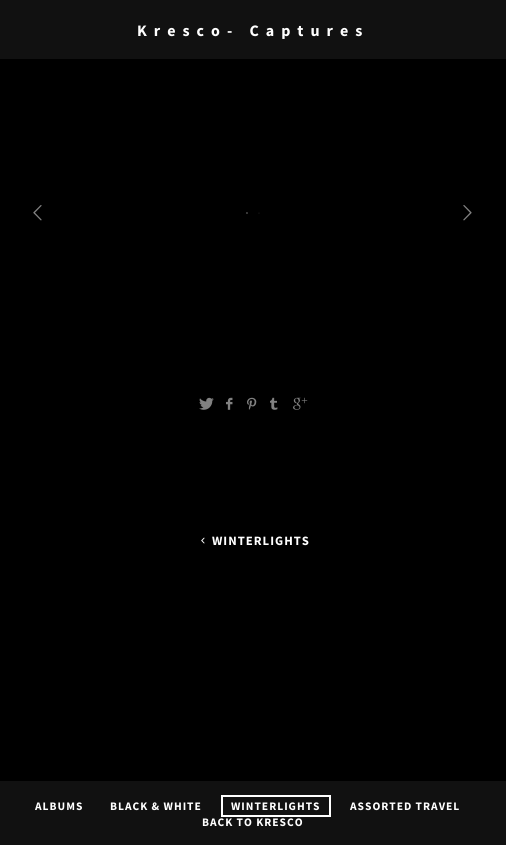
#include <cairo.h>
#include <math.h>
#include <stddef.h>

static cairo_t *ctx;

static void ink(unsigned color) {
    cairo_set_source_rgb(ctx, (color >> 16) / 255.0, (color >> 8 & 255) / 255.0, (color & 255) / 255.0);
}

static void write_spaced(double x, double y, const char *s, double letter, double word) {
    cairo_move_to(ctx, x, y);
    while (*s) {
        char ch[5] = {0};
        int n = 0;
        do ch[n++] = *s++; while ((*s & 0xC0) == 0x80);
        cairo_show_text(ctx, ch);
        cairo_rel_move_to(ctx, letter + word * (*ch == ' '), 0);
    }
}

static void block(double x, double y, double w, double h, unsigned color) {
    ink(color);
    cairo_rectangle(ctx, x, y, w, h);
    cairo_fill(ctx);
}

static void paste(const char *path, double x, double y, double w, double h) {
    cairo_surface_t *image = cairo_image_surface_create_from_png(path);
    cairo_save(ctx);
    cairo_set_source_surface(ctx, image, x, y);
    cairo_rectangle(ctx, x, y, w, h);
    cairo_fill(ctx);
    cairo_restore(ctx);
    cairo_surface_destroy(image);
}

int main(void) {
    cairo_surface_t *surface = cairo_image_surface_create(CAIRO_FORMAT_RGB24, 506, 845);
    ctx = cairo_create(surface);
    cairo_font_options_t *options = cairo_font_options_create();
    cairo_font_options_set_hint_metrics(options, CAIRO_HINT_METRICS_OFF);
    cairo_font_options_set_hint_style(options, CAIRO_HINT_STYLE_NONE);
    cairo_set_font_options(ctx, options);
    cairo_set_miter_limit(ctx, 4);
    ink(0x000000);
    cairo_paint(ctx);
    block(0, 0, 506, 59, 0x111111);
    cairo_select_font_face(ctx, "Source Sans Pro", CAIRO_FONT_SLANT_NORMAL, CAIRO_FONT_WEIGHT_BOLD);
    cairo_set_font_size(ctx, 16);
    ink(0xffffff);
    write_spaced(137, 36, "Kresco- Captures", 7, 0);
    paste("pic1.png", 33, 205, 9, 16);
    paste("pic2.png", 246, 212, 14, 2);
    paste("pic3.png", 463, 205, 9, 16);
    paste("pic4.png", 199, 397, 15, 13);
    paste("pic5.png", 226, 397, 7, 13);
    paste("pic6.png", 247, 397, 10, 13);
    paste("pic7.png", 270, 397, 8, 13);
    paste("pic8.png", 293, 397, 15, 13);
    paste("pic9.png", 201, 537, 4, 7);
    cairo_set_font_size(ctx, 12.75);
    write_spaced(212, 545, "WINTERLIGHTS", 1, 0);
    block(0, 781, 506, 64, 0x111111);
    cairo_set_font_size(ctx, 11.5);
    ink(0xffffff);
    write_spaced(35, 810, "ALBUMS", 1, 0);
    write_spaced(110, 810, "BLACK & WHITE", 1, 0);
    cairo_rectangle(ctx, 222, 796, 108, 20);
    cairo_stroke(ctx);
    write_spaced(231, 810, "WINTERLIGHTS", 1, 0);
    write_spaced(350, 810, "ASSORTED TRAVEL", 1, 0);
    write_spaced(202, 826, "BACK TO KRESCO", 1, 0);
    cairo_surface_write_to_png(surface, "screenshot.png");
    cairo_font_options_destroy(options);
    cairo_destroy(ctx);
    cairo_surface_destroy(surface);
    return 0;
}
